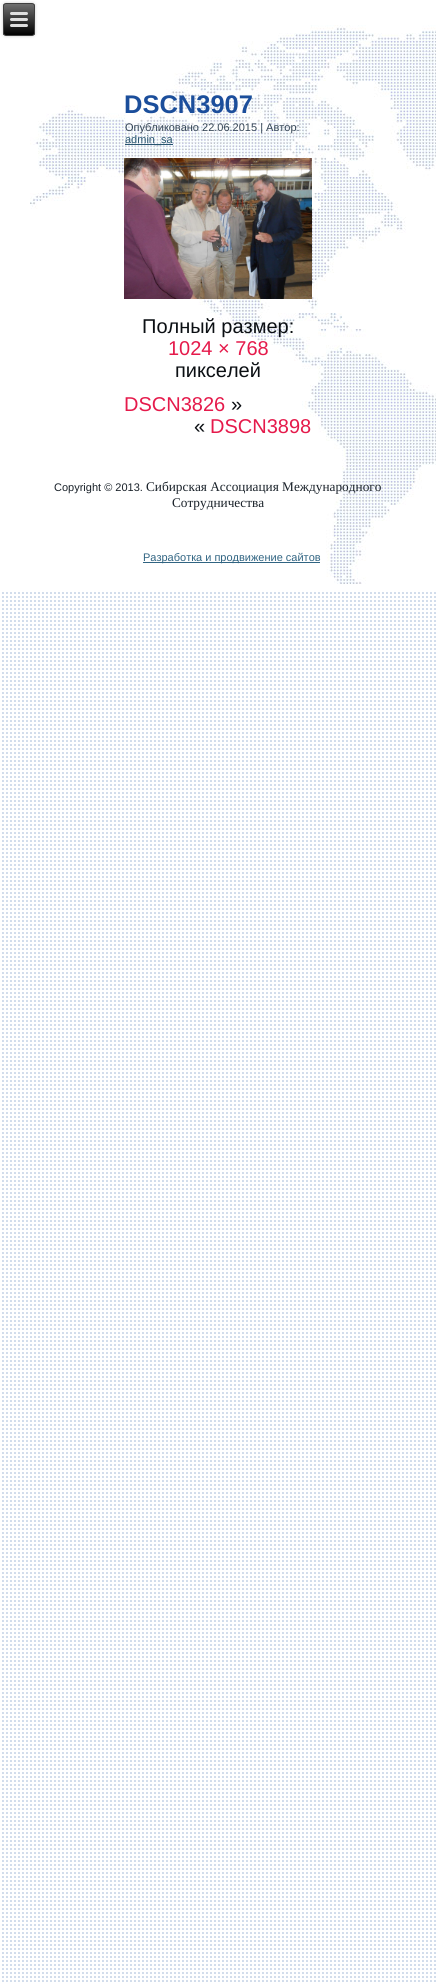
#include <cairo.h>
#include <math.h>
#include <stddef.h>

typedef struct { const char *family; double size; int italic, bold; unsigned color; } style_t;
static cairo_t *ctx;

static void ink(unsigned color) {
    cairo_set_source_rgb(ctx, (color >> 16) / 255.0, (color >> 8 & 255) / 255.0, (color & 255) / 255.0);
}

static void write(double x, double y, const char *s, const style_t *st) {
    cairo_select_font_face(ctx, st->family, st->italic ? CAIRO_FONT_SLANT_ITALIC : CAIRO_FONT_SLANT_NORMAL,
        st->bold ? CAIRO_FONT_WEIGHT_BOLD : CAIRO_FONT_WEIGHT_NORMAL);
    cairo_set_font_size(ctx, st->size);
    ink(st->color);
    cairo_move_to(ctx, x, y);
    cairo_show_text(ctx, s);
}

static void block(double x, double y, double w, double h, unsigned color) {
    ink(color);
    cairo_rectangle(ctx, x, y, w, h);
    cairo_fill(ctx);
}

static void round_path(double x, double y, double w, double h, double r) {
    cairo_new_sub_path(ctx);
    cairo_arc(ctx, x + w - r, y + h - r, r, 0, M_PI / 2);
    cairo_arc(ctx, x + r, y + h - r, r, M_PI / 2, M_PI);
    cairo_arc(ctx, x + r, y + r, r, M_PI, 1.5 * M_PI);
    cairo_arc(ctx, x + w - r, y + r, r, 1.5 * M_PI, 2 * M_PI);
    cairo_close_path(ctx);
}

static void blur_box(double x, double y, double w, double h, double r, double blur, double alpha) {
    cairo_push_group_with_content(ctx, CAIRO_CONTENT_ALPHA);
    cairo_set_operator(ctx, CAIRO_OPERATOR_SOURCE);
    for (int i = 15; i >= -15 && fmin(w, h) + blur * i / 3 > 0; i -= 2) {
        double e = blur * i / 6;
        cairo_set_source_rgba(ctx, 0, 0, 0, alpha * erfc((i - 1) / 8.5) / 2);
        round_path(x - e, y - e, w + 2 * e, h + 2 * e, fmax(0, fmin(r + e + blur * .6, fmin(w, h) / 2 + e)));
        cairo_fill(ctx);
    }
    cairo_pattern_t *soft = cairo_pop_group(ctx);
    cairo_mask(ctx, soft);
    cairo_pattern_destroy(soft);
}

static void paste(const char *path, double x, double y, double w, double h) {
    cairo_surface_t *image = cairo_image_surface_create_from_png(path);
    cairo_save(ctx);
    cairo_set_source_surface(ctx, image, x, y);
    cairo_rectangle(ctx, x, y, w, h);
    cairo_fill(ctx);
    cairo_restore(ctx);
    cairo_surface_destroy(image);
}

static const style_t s1 = {"Liberation Sans", 25.5, 0, 1, 0x1b4e9b};
static const style_t s2 = {"Liberation Sans", 11, 0, 0, 0x344556};
static const style_t s3 = {"Liberation Sans", 11, 0, 0, 0x295670};
static const style_t s4 = {"Liberation Sans", 20, 0, 0, 0x0b0f13};
static const style_t s5 = {"Liberation Sans", 20, 0, 0, 0xe51a4b};
static const style_t s6 = {"Liberation Sans", 11, 0, 0, 0x192129};
static const style_t s7 = {"Liberation Serif", 13.3, 0, 0, 0x192129};
static const style_t s8 = {"Liberation Sans", 11, 0, 0, 0x306482};

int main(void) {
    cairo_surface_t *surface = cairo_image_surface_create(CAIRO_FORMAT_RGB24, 436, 1983);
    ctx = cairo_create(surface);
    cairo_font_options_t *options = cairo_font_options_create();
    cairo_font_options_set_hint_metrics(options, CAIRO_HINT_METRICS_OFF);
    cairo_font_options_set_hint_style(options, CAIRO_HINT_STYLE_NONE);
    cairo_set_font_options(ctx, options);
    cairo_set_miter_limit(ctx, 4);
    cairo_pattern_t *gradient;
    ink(0xffffff);
    cairo_paint(ctx);
    paste("pic1.png", 2, 591, 434, 1391);
    paste("pic2.png", 30, 25, 406, 559);
    ink(0x000000);
    blur_box(3, 3, 32, 33, 3, 1.5, 0.2);
    cairo_save(ctx);
    round_path(3, 3, 32, 33, 3);
    cairo_clip(ctx);
    gradient = cairo_pattern_create_linear(19, 4, 19, 35);
    cairo_pattern_add_color_stop_rgba(gradient, 0, 0.439, 0.439, 0.439, 1);
    cairo_pattern_add_color_stop_rgba(gradient, 1, 0, 0, 0, 1);
    cairo_set_source(ctx, gradient);
    cairo_pattern_destroy(gradient);
    cairo_rectangle(ctx, 3, 4, 32, 31);
    cairo_fill(ctx);
    cairo_restore(ctx);
    round_path(3.5, 3.5, 31, 32, 2.5);
    ink(0x404040);
    cairo_set_line_width(ctx, 1);
    cairo_stroke(ctx);
    ink(0xe0e0e0);
    round_path(10, 12, 18, 3, 1.5);
    cairo_fill(ctx);
    round_path(10, 18, 18, 3, 1.5);
    cairo_fill(ctx);
    round_path(10, 24, 18, 3, 1.5);
    cairo_fill(ctx);
    write(124, 113, "DSCN3907", &s1);
    write(125, 131, "Опубликовано 22.06.2015 | Автор:", &s2);
    block(125, 144, 48, 1, 0x295670);
    write(125, 143, "admin_sa", &s3);
    paste("pic3.png", 124, 158, 188, 141);
    write(142, 333, "Полный размер:", &s4);
    write(168, 355, "1024 × 768", &s5);
    write(175, 377, "пикселей", &s4);
    write(124, 411, "DSCN3826", &s5);
    write(231, 411, "»", &s4);
    write(194, 433, "«", &s4);
    write(210, 433, "DSCN3898", &s5);
    write(54, 491, "Copyright © 2013.", &s6);
    write(146, 491, "Сибирская Ассоциация Международного", &s7);
    write(172, 507, "Сотрудничества", &s7);
    block(143, 562, 177, 1, 0x306482);
    write(143, 561, "Разработка и продвижение сайтов", &s8);
    cairo_surface_write_to_png(surface, "screenshot.png");
    cairo_font_options_destroy(options);
    cairo_destroy(ctx);
    cairo_surface_destroy(surface);
    return 0;
}
